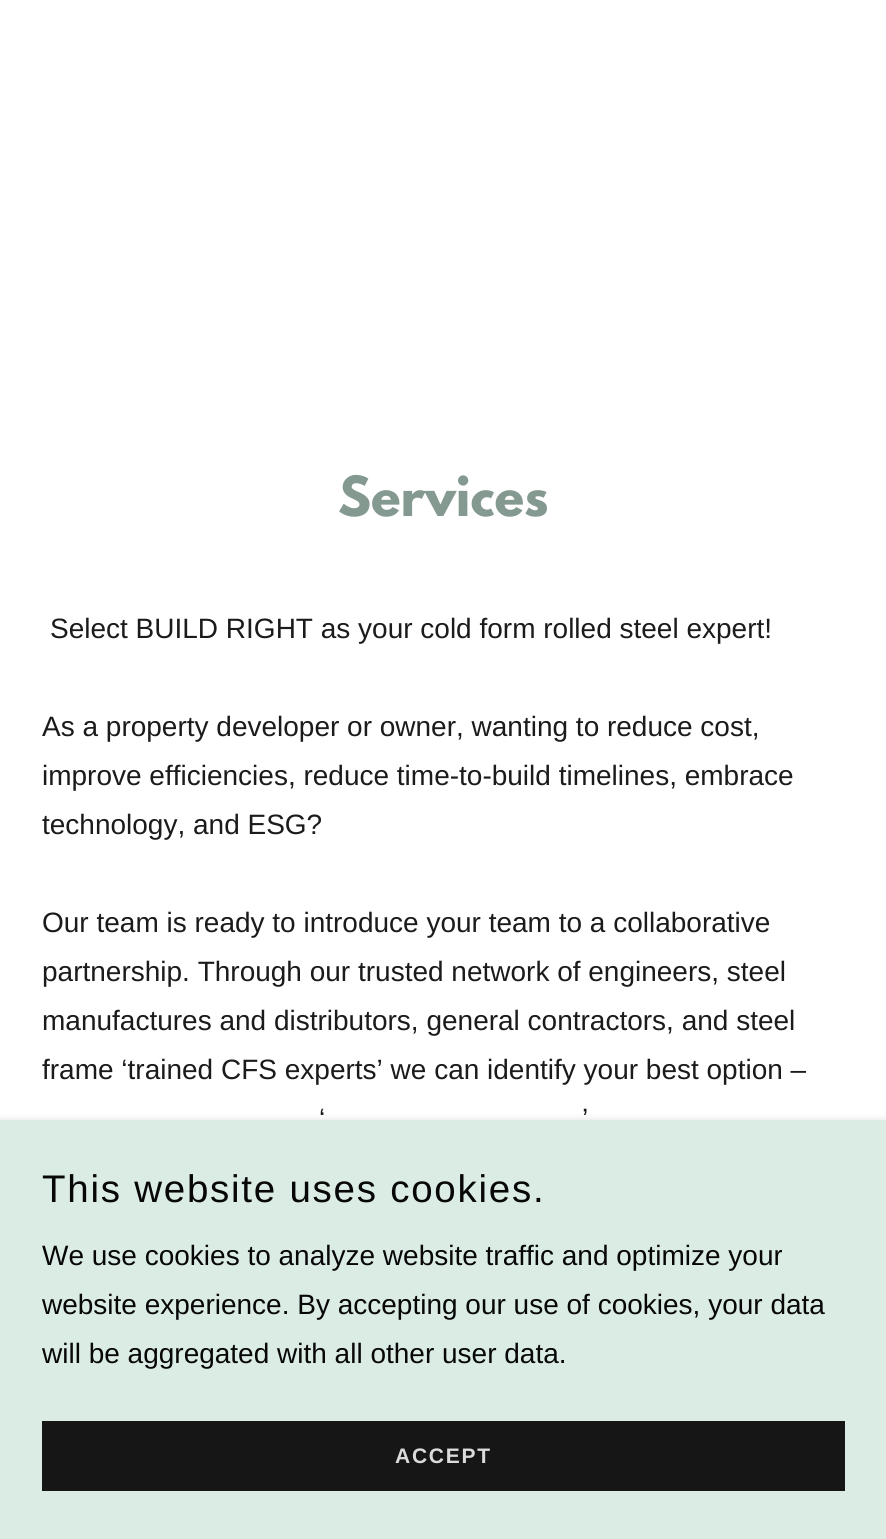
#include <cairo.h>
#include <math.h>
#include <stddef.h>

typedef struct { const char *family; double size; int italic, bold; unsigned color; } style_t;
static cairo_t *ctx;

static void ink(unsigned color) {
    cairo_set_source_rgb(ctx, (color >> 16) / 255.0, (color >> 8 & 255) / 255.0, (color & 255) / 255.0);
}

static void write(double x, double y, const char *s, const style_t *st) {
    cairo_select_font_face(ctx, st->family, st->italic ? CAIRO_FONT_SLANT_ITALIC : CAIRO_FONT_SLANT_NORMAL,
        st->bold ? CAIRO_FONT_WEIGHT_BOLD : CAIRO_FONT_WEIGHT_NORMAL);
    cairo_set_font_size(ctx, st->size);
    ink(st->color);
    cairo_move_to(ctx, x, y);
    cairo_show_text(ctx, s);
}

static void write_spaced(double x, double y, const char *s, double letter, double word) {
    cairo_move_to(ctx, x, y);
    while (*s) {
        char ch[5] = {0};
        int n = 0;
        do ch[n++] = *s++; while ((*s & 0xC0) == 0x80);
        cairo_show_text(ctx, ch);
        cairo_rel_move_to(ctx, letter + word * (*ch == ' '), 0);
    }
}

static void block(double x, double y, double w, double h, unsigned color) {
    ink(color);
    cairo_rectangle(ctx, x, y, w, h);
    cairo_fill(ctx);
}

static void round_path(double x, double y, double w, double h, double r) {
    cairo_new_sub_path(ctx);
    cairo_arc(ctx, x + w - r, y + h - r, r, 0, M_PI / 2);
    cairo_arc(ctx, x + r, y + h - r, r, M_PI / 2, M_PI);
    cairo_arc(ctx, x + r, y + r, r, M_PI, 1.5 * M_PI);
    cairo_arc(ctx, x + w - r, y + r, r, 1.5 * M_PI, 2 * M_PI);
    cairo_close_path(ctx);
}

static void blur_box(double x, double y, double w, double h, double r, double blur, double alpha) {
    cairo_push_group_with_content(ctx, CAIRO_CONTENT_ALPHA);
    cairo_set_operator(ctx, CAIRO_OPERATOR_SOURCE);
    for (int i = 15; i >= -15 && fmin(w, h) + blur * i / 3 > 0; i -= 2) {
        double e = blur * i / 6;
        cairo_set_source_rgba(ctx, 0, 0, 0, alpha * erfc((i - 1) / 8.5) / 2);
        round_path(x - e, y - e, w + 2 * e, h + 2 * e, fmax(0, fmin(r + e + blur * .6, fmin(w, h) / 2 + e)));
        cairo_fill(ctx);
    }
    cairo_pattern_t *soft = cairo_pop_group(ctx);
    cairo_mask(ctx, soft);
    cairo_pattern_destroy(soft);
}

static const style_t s1 = {"League Spartan", 49, 0, 1, 0x849990};
static const style_t s2 = {"Liberation Sans", 28, 0, 0, 0x1b1b1b};
static const style_t s3 = {"Liberation Sans", 28, 0, 0, 0x070707};

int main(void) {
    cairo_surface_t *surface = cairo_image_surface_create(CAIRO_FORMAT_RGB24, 886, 1539);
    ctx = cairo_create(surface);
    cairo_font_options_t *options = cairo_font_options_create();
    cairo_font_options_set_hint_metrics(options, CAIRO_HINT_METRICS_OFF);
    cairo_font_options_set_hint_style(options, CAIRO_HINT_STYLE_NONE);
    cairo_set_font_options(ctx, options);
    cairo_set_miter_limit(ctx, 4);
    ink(0xffffff);
    cairo_paint(ctx);
    write(338, 516, "Services", &s1);
    write(50, 638, "Select BUILD RIGHT as your cold form rolled steel expert!", &s2);
    write(42, 736, "As a property developer or owner, wanting to reduce cost,", &s2);
    write(42, 785, "improve efficiencies, reduce time-to-build timelines, embrace", &s2);
    write(42, 834, "technology, and ESG?", &s2);
    write(42, 932, "Our team is ready to introduce your team to a collaborative", &s2);
    write(42, 981, "partnership. Through our trusted network of engineers, steel", &s2);
    write(42, 1030, "manufactures and distributors, general contractors, and steel", &s2);
    write(42, 1079, "frame ‘trained CFS experts’ we can identify your best option –", &s2);
    write(319, 1128, "‘", &s2);
    write(582, 1128, "’", &s2);
    ink(0x000000);
    blur_box(0, 1124, 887, 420, 0, 5, 0.3);
    block(0, 1120, 886, 419, 0xdbece5);
    cairo_set_font_size(ctx, 38.5);
    ink(0x070707);
    write_spaced(42, 1202, "This website uses cookies.", 1.75, 0);
    write(42, 1265, "We use cookies to analyze website traffic and optimize your", &s3);
    write(42, 1314, "website experience. By accepting our use of cookies, your data", &s3);
    write(42, 1363, "will be aggregated with all other user data.", &s3);
    block(42, 1421, 803, 70, 0x161616);
    cairo_select_font_face(ctx, "Liberation Sans", CAIRO_FONT_SLANT_NORMAL, CAIRO_FONT_WEIGHT_BOLD);
    cairo_set_font_size(ctx, 21);
    ink(0xdbdbdb);
    write_spaced(395, 1463, "ACCEPT", 1.75, 0);
    cairo_surface_write_to_png(surface, "screenshot.png");
    cairo_font_options_destroy(options);
    cairo_destroy(ctx);
    cairo_surface_destroy(surface);
    return 0;
}
